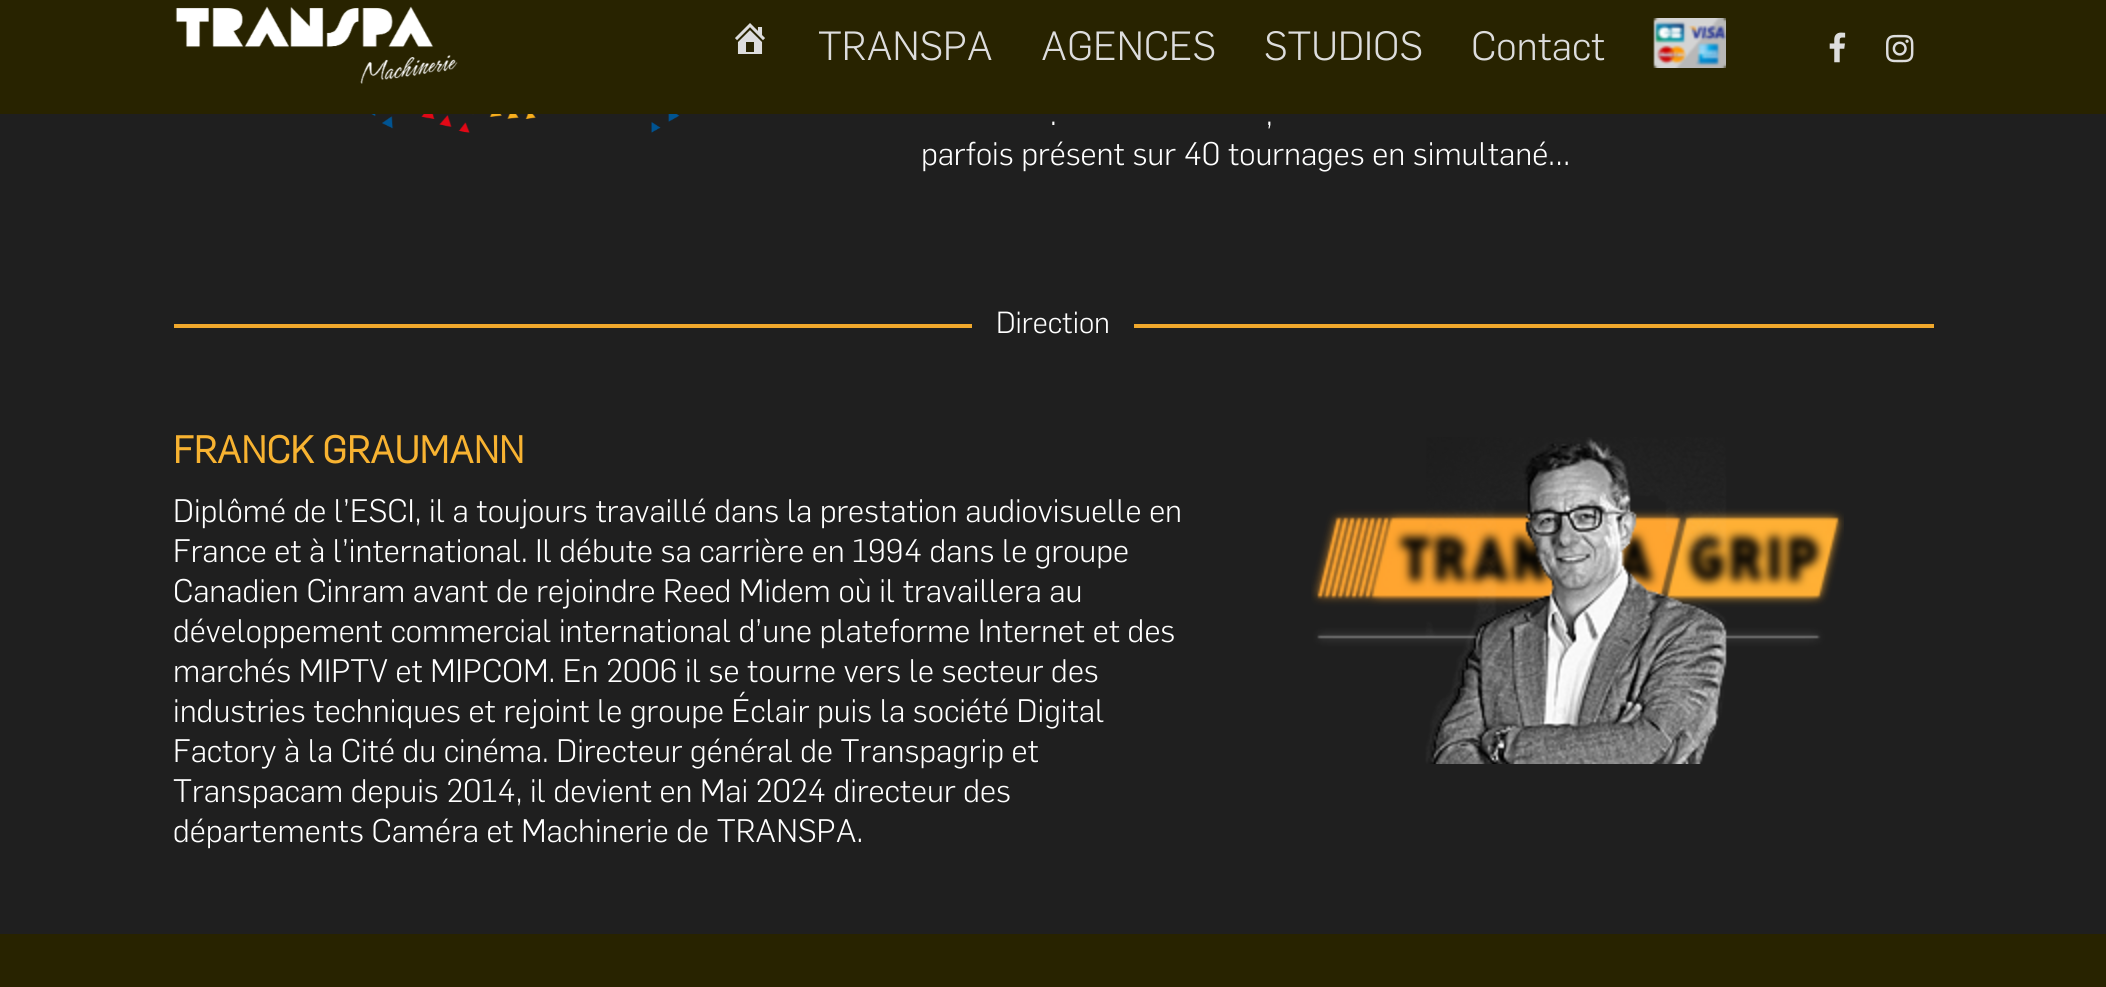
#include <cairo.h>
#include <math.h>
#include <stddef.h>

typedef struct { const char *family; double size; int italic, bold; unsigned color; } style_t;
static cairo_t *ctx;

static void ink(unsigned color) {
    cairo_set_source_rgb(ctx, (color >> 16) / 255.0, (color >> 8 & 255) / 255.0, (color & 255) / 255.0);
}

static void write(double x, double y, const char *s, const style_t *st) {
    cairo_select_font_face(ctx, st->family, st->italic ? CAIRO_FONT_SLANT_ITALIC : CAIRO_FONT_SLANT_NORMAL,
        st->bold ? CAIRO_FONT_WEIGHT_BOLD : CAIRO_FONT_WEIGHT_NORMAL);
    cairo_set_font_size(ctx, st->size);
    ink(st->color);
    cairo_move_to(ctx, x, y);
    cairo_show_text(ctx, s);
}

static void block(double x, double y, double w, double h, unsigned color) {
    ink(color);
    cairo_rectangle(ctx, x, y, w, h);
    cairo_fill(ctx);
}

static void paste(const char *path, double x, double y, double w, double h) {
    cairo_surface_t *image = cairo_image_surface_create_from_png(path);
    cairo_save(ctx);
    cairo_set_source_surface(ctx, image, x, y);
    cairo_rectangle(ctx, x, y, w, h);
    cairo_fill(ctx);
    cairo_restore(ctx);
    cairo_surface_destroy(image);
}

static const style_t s1 = {"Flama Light", 40, 0, 0, 0xdddddd};
static const style_t s2 = {"Flama Light", 32, 0, 0, 0xffffff};
static const style_t s3 = {"Flama Light", 30, 0, 0, 0xffffff};
static const style_t s4 = {"Flama", 37.5, 0, 1, 0xf8b331};

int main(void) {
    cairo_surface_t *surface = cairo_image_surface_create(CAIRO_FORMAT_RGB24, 2106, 987);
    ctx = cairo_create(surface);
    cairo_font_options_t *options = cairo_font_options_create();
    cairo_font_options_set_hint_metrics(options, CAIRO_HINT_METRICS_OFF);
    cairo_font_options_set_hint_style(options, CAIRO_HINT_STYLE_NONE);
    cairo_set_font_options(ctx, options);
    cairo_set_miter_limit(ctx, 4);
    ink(0x1f1f1f);
    cairo_paint(ctx);
    block(0, 0, 2106, 114, 0x282300);
    paste("pic1.png", 175, 6, 283, 78);
    paste("pic2.png", 735, 23, 30, 31);
    write(818, 60, "TRANSPA", &s1);
    write(1041, 60, "AGENCES", &s1);
    write(1264, 60, "STUDIOS", &s1);
    write(1471, 60, "Contact", &s1);
    paste("pic3.png", 1653, 18, 73, 50);
    paste("pic4.png", 1829, 32, 17, 31);
    paste("pic5.png", 1886, 34, 28, 29);
    paste("pic6.png", 371, 114, 309, 19);
    write(1050, 125, ".", &s2);
    write(1266, 125, ",", &s2);
    write(921, 165, "parfois présent sur 40 tournages en simultané…", &s2);
    block(174, 324, 798, 4, 0xf0a82c);
    write(996, 333, "Direction", &s3);
    block(1134, 324, 800, 4, 0xf0a82c);
    write(173, 463, "FRANCK GRAUMANN", &s4);
    write(173, 522, "Diplômé de l’ESCI, il a toujours travaillé dans la prestation audiovisuelle en", &s2);
    write(173, 562, "France et à l’international. Il débute sa carrière en 1994 dans le groupe", &s2);
    write(173, 602, "Canadien Cinram avant de rejoindre Reed Midem où il travaillera au", &s2);
    write(173, 642, "développement commercial international d’une plateforme Internet et des", &s2);
    write(173, 682, "marchés MIPTV et MIPCOM. En 2006 il se tourne vers le secteur des", &s2);
    write(173, 722, "industries techniques et rejoint le groupe Éclair puis la société Digital", &s2);
    write(173, 762, "Factory à la Cité du cinéma. Directeur général de Transpagrip et", &s2);
    write(173, 802, "Transpacam depuis 2014, il devient en Mai 2024 directeur des", &s2);
    write(173, 842, "départements Caméra et Machinerie de TRANSPA.", &s2);
    paste("pic7.png", 1311, 437, 533, 327);
    block(0, 934, 2106, 53, 0x282300);
    cairo_surface_write_to_png(surface, "screenshot.png");
    cairo_font_options_destroy(options);
    cairo_destroy(ctx);
    cairo_surface_destroy(surface);
    return 0;
}
